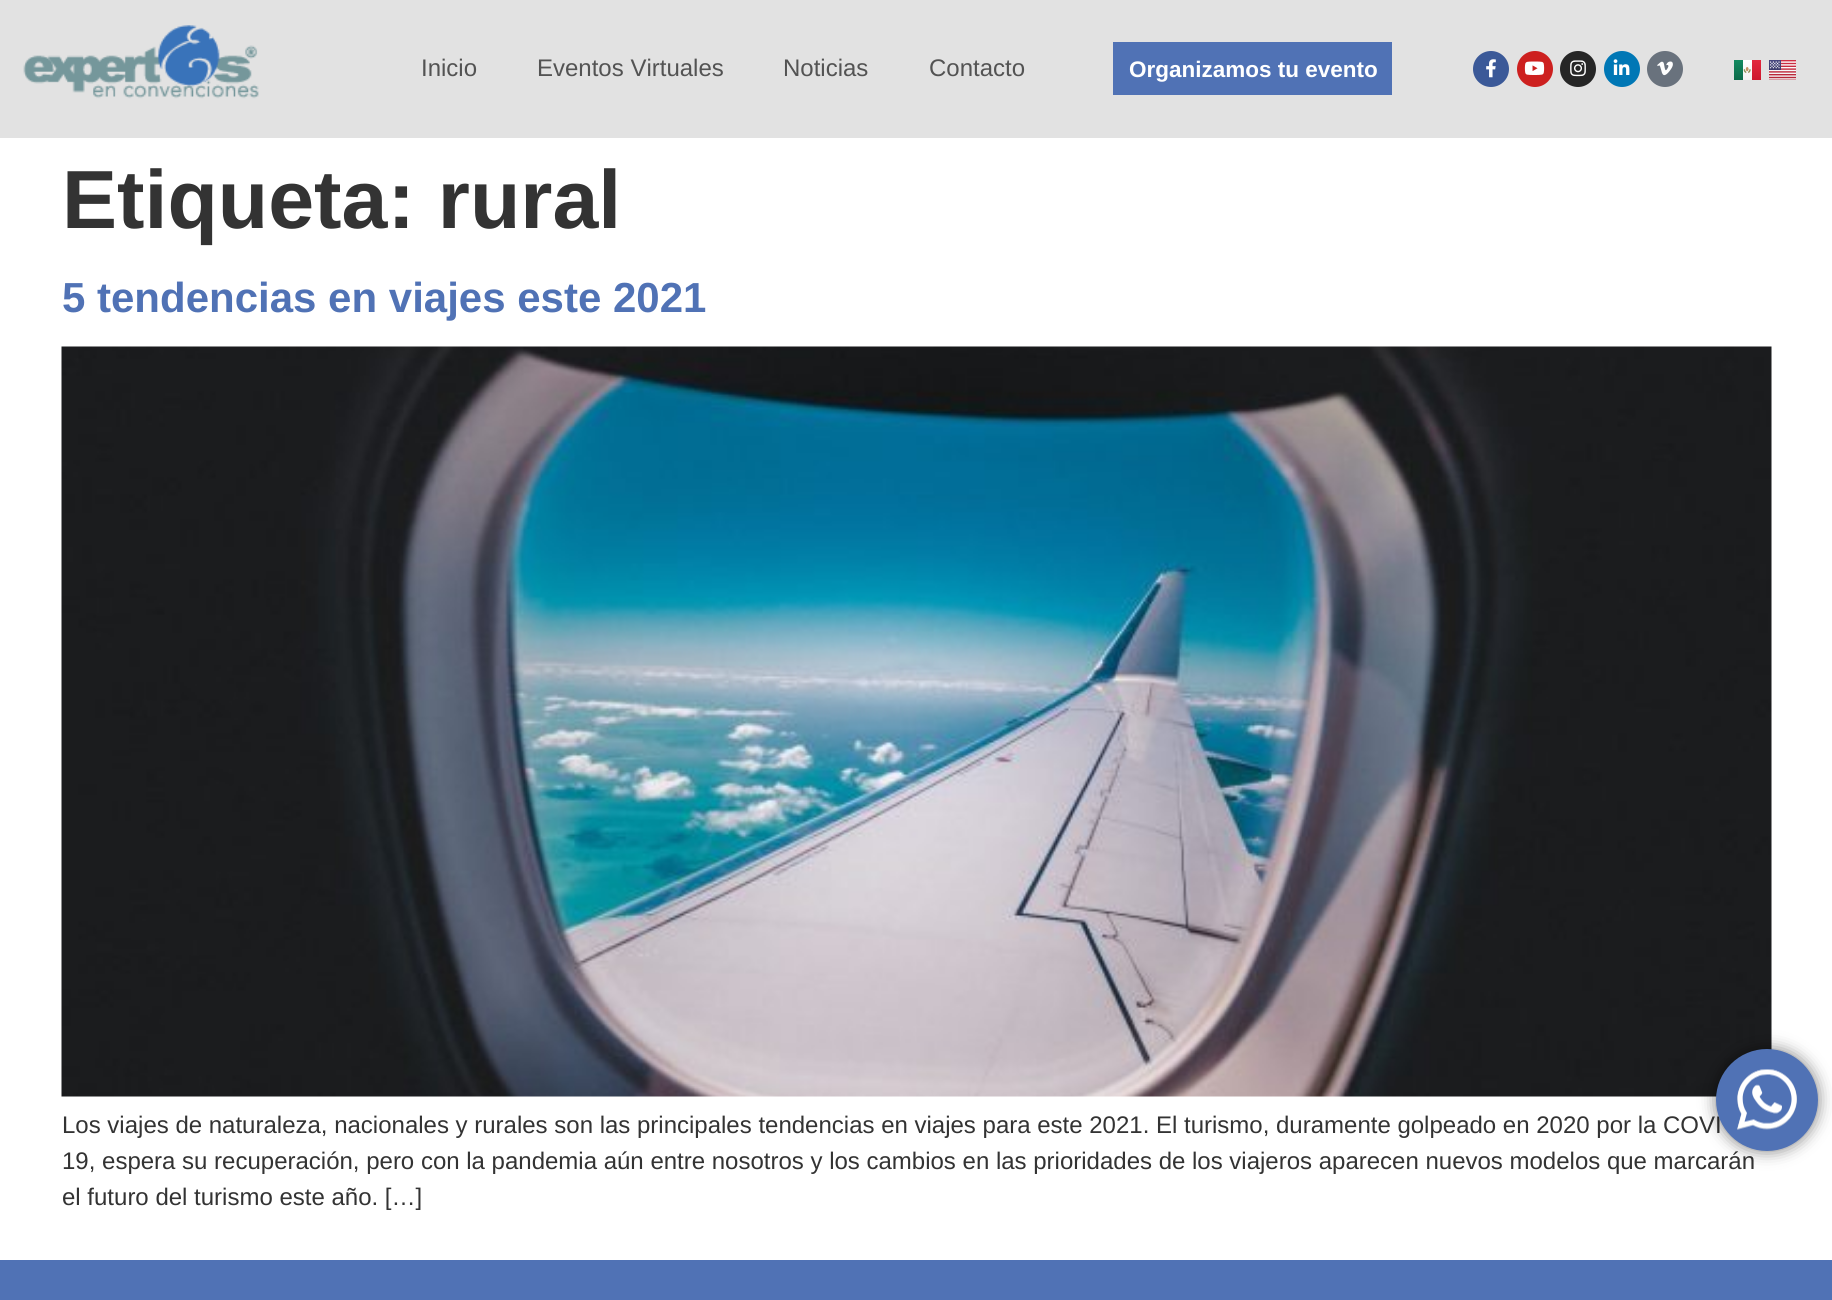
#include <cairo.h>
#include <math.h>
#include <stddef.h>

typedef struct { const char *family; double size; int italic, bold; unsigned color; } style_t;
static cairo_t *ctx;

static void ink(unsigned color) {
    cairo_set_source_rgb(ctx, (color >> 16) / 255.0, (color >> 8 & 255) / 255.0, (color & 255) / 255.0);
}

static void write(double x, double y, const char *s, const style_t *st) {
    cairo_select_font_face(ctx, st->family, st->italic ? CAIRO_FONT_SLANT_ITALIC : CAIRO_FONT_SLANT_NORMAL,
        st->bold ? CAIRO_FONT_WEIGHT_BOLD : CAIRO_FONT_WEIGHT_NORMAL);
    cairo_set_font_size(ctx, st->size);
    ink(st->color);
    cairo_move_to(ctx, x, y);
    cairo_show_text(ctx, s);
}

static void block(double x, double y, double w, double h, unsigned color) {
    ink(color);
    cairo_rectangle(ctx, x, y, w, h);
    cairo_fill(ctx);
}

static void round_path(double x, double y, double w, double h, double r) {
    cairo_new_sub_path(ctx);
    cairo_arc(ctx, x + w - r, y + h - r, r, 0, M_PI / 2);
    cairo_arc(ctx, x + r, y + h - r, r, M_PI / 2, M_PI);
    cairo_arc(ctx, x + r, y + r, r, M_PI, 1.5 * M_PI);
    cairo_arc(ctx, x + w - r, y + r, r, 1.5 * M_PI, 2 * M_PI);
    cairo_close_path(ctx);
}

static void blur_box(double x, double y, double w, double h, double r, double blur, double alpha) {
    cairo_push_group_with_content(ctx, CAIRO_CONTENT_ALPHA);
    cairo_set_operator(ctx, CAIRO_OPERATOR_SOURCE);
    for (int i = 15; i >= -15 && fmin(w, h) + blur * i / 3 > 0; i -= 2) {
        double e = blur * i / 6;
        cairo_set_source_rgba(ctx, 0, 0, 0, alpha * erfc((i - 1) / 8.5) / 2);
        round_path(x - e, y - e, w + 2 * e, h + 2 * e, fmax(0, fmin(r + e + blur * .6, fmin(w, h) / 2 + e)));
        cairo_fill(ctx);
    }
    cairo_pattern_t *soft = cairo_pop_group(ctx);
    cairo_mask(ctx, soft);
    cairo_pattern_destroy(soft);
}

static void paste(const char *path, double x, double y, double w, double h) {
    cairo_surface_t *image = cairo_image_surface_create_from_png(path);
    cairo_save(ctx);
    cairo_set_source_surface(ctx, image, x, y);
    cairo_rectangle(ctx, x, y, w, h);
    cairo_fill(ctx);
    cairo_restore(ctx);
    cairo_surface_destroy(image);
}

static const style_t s1 = {"Liberation Sans", 24, 0, 0, 0x535353};
static const style_t s2 = {"Liberation Sans", 22.5, 0, 1, 0xffffff};
static const style_t s3 = {"Liberation Sans", 82.5, 0, 1, 0x333333};
static const style_t s4 = {"Liberation Sans", 42, 0, 1, 0x5072b5};
static const style_t s5 = {"Liberation Sans", 24, 0, 0, 0x333333};

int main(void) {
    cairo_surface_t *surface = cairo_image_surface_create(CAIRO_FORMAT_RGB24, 1832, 1300);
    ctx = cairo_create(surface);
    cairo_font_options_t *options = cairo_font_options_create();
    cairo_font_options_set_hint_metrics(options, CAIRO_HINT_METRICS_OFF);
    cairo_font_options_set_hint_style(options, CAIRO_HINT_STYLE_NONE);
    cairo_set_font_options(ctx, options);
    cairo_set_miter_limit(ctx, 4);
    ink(0xffffff);
    cairo_paint(ctx);
    block(0, 0, 1832, 138, 0xe2e2e2);
    paste("pic1.png", 23, 25, 236, 74);
    write(421, 76, "Inicio", &s1);
    write(537, 76, "Eventos Virtuales", &s1);
    write(783, 76, "Noticias", &s1);
    write(929, 76, "Contacto", &s1);
    block(1113, 42, 279, 53, 0x5072b5);
    write(1129, 77, "Organizamos tu evento", &s2);
    ink(0x3b5998);
    cairo_new_path(ctx);
    cairo_arc(ctx, 1491, 69, 18, 0, 2 * M_PI);
    cairo_fill(ctx);
    paste("pic2.png", 1486, 59, 10, 19);
    ink(0xcd201f);
    cairo_arc(ctx, 1535, 69, 18, 0, 2 * M_PI);
    cairo_fill(ctx);
    paste("pic3.png", 1524, 61, 21, 14);
    ink(0x262626);
    cairo_arc(ctx, 1578, 69, 18, 0, 2 * M_PI);
    cairo_fill(ctx);
    paste("pic4.png", 1570, 60, 16, 17);
    ink(0x0077b5);
    cairo_arc(ctx, 1622, 69, 18, 0, 2 * M_PI);
    cairo_fill(ctx);
    paste("pic5.png", 1613, 59, 17, 16);
    ink(0x69727d);
    cairo_arc(ctx, 1665, 69, 18, 0, 2 * M_PI);
    cairo_fill(ctx);
    paste("pic6.png", 1657, 61, 16, 15);
    paste("pic7.png", 1734, 60, 27, 20);
    paste("pic8.png", 1769, 60, 27, 20);
    write(62, 228, "Etiqueta: rural", &s3);
    write(62, 312, "5 tendencias en viajes este 2021", &s4);
    paste("pic9.png", 61, 346, 1711, 751);
    write(62, 1133, "Los viajes de naturaleza, nacionales y rurales son las principales tendencias en viajes para este 2021. El turismo, duramente golpeado en 2020 por la COVI", &s5);
    write(62, 1169, "19, espera su recuperación, pero con la pandemia aún entre nosotros y los cambios en las prioridades de los viajeros aparecen nuevos modelos que marcarán", &s5);
    write(62, 1205, "el futuro del turismo este año. […]", &s5);
    ink(0x000000);
    blur_box(1716, 1049, 102, 102, 51, 8, 0.5);
    ink(0x5072b5);
    cairo_arc(ctx, 1767, 1100, 51, 0, 2 * M_PI);
    cairo_fill(ctx);
    paste("pic10.png", 1737, 1069, 60, 61);
    block(0, 1260, 1832, 40, 0x5072b5);
    cairo_surface_write_to_png(surface, "screenshot.png");
    cairo_font_options_destroy(options);
    cairo_destroy(ctx);
    cairo_surface_destroy(surface);
    return 0;
}
